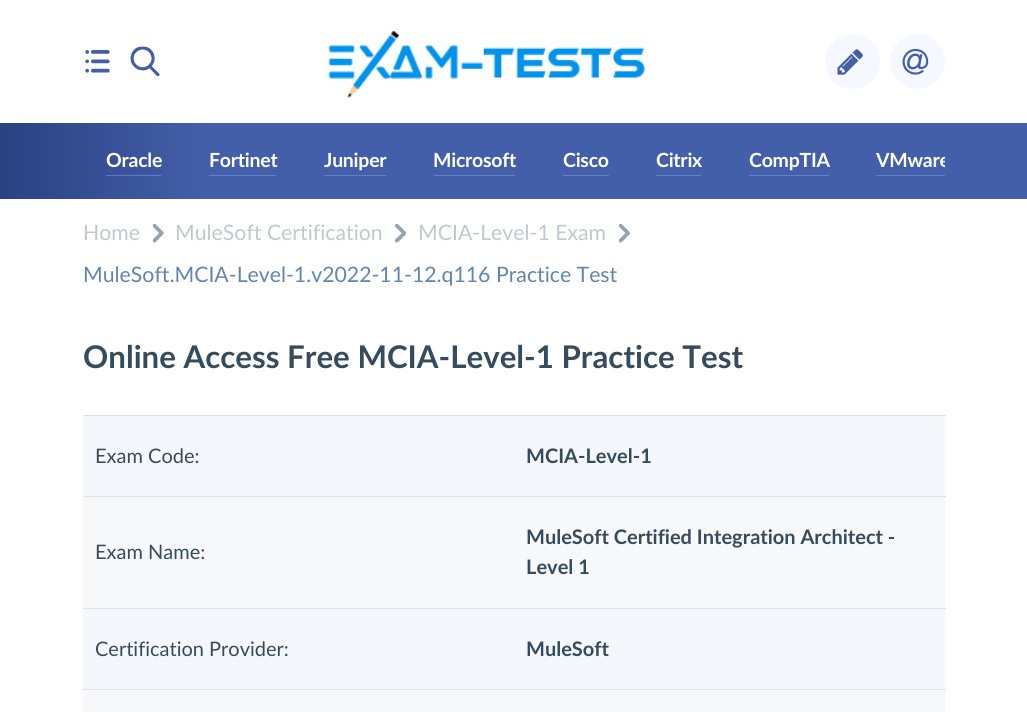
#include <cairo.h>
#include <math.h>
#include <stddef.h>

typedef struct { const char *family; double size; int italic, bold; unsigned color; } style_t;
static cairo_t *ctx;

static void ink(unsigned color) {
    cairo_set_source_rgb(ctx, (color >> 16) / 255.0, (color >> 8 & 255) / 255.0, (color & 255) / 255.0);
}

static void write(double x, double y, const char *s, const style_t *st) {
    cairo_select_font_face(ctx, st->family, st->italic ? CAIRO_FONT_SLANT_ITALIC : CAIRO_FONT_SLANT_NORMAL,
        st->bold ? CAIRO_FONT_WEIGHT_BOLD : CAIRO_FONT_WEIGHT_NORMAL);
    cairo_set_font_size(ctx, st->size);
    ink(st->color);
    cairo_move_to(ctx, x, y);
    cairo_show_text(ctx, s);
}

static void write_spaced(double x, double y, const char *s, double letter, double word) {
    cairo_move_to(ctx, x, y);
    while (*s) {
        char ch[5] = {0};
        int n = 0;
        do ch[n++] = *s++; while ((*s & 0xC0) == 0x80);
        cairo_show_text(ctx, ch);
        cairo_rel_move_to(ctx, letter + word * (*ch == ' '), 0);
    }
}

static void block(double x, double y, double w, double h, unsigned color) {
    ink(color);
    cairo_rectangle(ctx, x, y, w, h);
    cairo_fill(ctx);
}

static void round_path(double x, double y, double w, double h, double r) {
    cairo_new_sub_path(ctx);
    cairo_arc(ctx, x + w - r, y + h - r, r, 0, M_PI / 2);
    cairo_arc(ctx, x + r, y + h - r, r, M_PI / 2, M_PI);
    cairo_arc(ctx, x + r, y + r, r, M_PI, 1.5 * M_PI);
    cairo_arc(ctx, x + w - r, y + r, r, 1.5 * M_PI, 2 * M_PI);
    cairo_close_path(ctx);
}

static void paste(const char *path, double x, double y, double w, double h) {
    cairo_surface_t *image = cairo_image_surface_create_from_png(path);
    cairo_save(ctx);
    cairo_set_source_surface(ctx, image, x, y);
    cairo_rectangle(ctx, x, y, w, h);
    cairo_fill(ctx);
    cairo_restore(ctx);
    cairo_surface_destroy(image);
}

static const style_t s1 = {"Lato", 21.25, 0, 0, 0xc0c9cf};
static const style_t s2 = {"Lato", 21.25, 0, 0, 0x6186b0};
static const style_t s3 = {"Lato", 31.25, 0, 1, 0x354c5e};
static const style_t s4 = {"Lato", 20, 0, 0, 0x354c5e};
static const style_t s5 = {"Lato", 20, 0, 1, 0x354c5e};

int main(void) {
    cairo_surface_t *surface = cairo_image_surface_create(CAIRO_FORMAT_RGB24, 1027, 712);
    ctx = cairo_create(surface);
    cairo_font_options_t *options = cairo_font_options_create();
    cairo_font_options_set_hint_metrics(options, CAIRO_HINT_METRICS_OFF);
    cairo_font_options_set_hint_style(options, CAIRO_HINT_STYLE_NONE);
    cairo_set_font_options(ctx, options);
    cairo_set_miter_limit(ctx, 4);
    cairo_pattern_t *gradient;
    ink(0xffffff);
    cairo_paint(ctx);
    paste("pic1.png", 85, 50, 25, 23);
    paste("pic2.png", 130, 46, 30, 30);
    paste("pic3.png", 328, 31, 318, 67);
    ink(0xf5f8fe);
    cairo_arc(ctx, 852.5, 61.5, 27.5, 0, 2 * M_PI);
    cairo_fill(ctx);
    paste("pic4.png", 837, 49, 26, 26);
    cairo_arc(ctx, 917.5, 61.5, 27.5, 0, 2 * M_PI);
    cairo_fill(ctx);
    paste("pic5.png", 902, 48, 27, 27);
    gradient = cairo_pattern_create_linear(0, 161, 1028, 161);
    cairo_pattern_add_color_stop_rgba(gradient, 0, 0.165, 0.255, 0.51, 1);
    cairo_pattern_add_color_stop_rgba(gradient, 0.2, 0.267, 0.373, 0.663, 1);
    cairo_pattern_add_color_stop_rgba(gradient, 1, 0.267, 0.373, 0.663, 1);
    cairo_set_source(ctx, gradient);
    cairo_pattern_destroy(gradient);
    cairo_rectangle(ctx, 0, 123, 1027, 76);
    cairo_fill(ctx);
    gradient = cairo_pattern_create_linear(0, 161, 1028, 161);
    cairo_pattern_add_color_stop_rgba(gradient, 0, 0.318, 0.431, 0.686, 1);
    cairo_pattern_add_color_stop_rgba(gradient, 0.2, 0.384, 0.506, 0.784, 1);
    cairo_pattern_add_color_stop_rgba(gradient, 1, 0.384, 0.506, 0.784, 1);
    cairo_set_source(ctx, gradient);
    cairo_pattern_destroy(gradient);
    cairo_rectangle(ctx, 106, 175, 55, 1);
    cairo_fill(ctx);
    cairo_select_font_face(ctx, "Lato", CAIRO_FONT_SLANT_NORMAL, CAIRO_FONT_WEIGHT_BOLD);
    cairo_set_font_size(ctx, 19.5);
    ink(0xffffff);
    write_spaced(106, 167, "Oracle", -0.25, 0);
    block(209, 175, 67, 1, 0x6281c8);
    ink(0xffffff);
    write_spaced(209, 167, "Fortinet", -0.25, 0);
    block(324, 175, 62, 1, 0x6281c8);
    ink(0xffffff);
    write_spaced(324, 167, "Juniper", -0.25, 0);
    block(434, 175, 81, 1, 0x6281c8);
    ink(0xffffff);
    write_spaced(433, 167, "Microsoft", -0.25, 0);
    block(563, 175, 46, 1, 0x6281c8);
    ink(0xffffff);
    write_spaced(563, 167, "Cisco", -0.25, 0);
    block(656, 175, 45, 1, 0x6281c8);
    ink(0xffffff);
    write_spaced(656, 167, "Citrix", -0.25, 0);
    block(749, 175, 80, 1, 0x6281c8);
    ink(0xffffff);
    write_spaced(749, 167, "CompTIA", -0.25, 0);
    block(876, 175, 69, 1, 0x6281c8);
    cairo_save(ctx);
    cairo_rectangle(ctx, 83, 145, 862, 31);
    cairo_clip(ctx);
    ink(0xffffff);
    write_spaced(876, 167, "VMware", -0.25, 0);
    cairo_restore(ctx);
    paste("pic6.png", 153, 224, 11, 19);
    write(83, 240, "Home", &s1);
    paste("pic7.png", 395, 224, 11, 19);
    write(175, 240, "MuleSoft Certification", &s1);
    paste("pic8.png", 619, 224, 11, 19);
    write(418, 240, "MCIA-Level-1 Exam", &s1);
    write(83, 282, "MuleSoft.MCIA-Level-1.v2022-11-12.q116 Practice Test", &s2);
    write(83, 368, "Online Access Free MCIA-Level-1 Practice Test", &s3);
    ink(0xf4f7fc);
    round_path(83, 415, 862, 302, 5);
    cairo_fill(ctx);
    write(95, 463, "Exam Code:", &s4);
    block(83, 415, 863, 1, 0xdfe2e5);
    write(526, 463, "MCIA-Level-1", &s5);
    block(83, 497, 862, 111, 0xf7f8fa);
    write(95, 559, "Exam Name:", &s4);
    block(83, 496, 863, 1, 0xdfe2e5);
    write(526, 544, "MuleSoft Certified Integration Architect -", &s5);
    write(526, 574, "Level 1", &s5);
    write(95, 656, "Certification Provider:", &s4);
    block(83, 608, 863, 1, 0xdfe2e5);
    write(526, 656, "MuleSoft", &s5);
    block(83, 690, 862, 22, 0xf7f8fa);
    block(83, 689, 863, 1, 0xdfe2e5);
    cairo_surface_write_to_png(surface, "screenshot.png");
    cairo_font_options_destroy(options);
    cairo_destroy(ctx);
    cairo_surface_destroy(surface);
    return 0;
}
